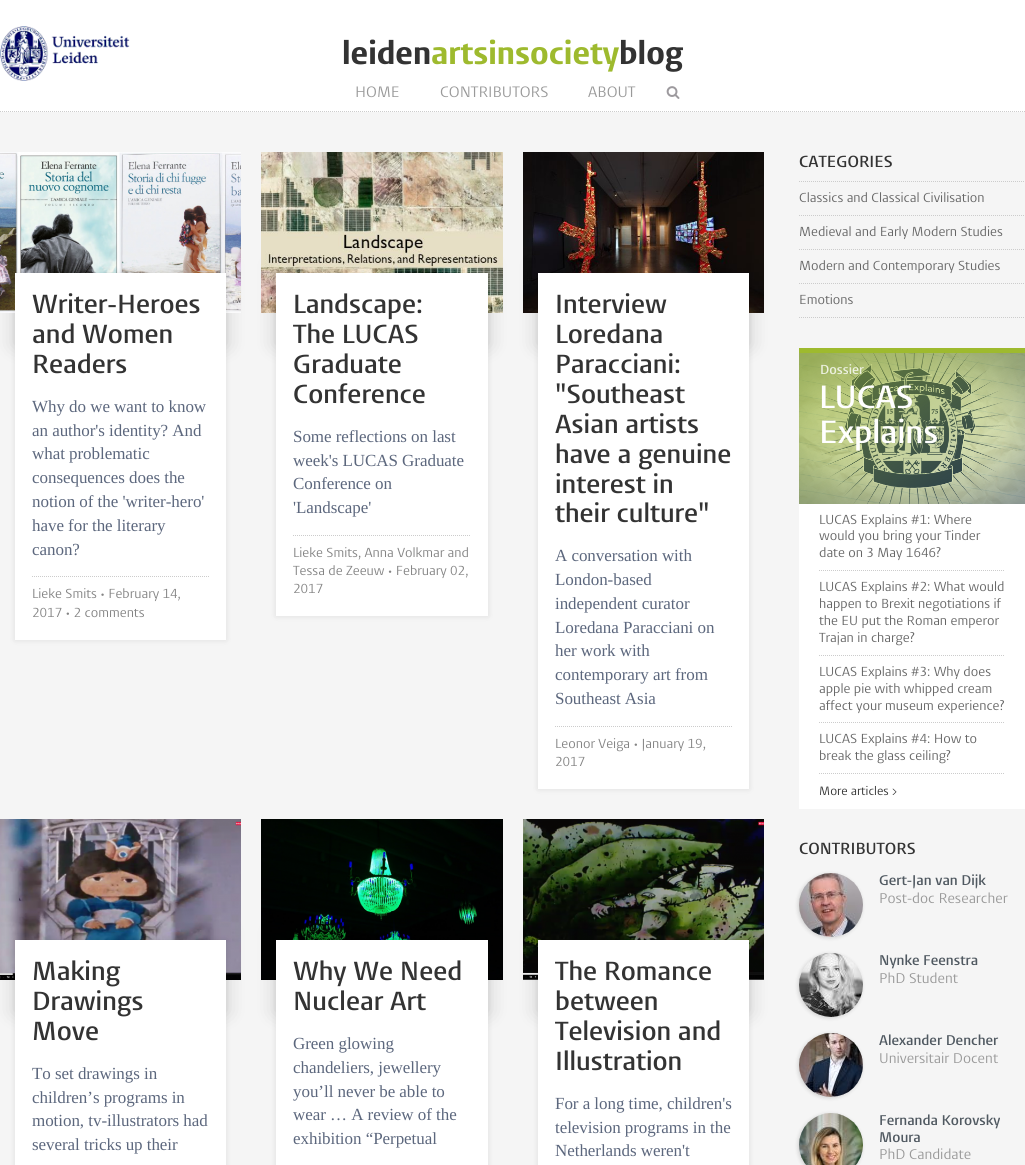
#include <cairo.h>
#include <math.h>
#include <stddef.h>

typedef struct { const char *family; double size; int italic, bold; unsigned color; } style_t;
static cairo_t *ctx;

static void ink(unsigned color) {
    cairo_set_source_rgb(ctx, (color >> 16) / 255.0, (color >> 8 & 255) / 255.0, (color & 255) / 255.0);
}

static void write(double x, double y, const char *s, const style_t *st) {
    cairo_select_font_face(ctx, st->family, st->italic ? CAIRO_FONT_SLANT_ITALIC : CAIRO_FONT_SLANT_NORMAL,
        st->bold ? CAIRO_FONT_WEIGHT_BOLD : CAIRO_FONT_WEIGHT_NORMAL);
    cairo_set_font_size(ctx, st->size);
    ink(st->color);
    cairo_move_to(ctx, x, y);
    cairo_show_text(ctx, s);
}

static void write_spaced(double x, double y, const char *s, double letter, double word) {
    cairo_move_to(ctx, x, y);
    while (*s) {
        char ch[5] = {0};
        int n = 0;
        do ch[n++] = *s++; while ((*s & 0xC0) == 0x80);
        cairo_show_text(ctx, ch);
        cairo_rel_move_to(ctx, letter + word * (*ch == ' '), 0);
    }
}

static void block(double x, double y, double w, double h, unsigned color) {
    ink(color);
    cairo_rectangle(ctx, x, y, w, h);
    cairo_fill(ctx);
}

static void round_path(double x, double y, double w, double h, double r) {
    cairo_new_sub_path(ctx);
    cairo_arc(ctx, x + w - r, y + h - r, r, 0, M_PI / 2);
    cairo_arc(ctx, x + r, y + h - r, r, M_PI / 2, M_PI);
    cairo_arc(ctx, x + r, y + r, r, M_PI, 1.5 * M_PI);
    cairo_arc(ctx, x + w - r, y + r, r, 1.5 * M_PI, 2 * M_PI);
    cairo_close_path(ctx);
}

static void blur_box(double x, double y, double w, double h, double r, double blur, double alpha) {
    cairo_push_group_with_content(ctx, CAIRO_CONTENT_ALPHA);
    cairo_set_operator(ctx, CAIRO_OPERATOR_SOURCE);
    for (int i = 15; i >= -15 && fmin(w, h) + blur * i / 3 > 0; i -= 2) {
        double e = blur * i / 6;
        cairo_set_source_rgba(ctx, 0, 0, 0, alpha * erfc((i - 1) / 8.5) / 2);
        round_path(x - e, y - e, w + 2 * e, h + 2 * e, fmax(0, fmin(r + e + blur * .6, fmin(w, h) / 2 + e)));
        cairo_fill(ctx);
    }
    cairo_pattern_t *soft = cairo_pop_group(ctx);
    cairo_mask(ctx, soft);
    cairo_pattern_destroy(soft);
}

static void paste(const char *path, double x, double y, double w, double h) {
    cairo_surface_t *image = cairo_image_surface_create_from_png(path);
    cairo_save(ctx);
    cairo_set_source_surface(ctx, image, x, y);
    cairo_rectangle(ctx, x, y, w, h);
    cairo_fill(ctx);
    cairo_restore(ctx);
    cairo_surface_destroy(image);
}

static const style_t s1 = {"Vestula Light", 32, 0, 0, 0x333333};
static const style_t s2 = {"Vestula Light", 32, 0, 0, 0x9eba2e};
static const style_t s3 = {"Vestula", 15, 0, 0, 0x999999};
static const style_t s4 = {"Vestula SemiBold", 26, 0, 0, 0x333333};
static const style_t s5 = {"Vestula", 13, 0, 0, 0x848484};
static const style_t s6 = {"Vestula SemiBold", 16, 0, 0, 0x333333};
static const style_t s7 = {"Vestula", 13, 0, 0, 0x666666};
static const style_t s8 = {"Vestula SemiBold", 13, 0, 0, 0xedf1e1};
static const style_t s9 = {"Vestula SemiBold", 32, 0, 0, 0xffffff};
static const style_t s10 = {"Vestula", 12, 0, 0, 0x333333};
static const style_t s11 = {"Vestula SemiBold", 14, 0, 0, 0x505961};
static const style_t s12 = {"Vestula", 14, 0, 0, 0x999999};

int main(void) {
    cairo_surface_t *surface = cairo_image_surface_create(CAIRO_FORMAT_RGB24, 1025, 1165);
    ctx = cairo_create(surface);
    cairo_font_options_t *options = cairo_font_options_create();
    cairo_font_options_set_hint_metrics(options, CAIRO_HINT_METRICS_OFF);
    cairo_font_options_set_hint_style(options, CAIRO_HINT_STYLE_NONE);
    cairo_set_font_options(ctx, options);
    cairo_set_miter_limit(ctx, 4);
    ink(0xf5f5f5);
    cairo_paint(ctx);
    block(0, 0, 1025, 112, 0xffffff);
    cairo_new_path(ctx);
    cairo_move_to(ctx, 0, 111.5);
    cairo_line_to(ctx, 1025, 111.5);
    ink(0xcccccc);
    cairo_set_line_width(ctx, 1);
    cairo_set_dash(ctx, (double[]){1, 1}, 2, 0);
    cairo_stroke(ctx);
    paste("pic1.png", 0, 26, 130, 55);
    write(342, 64, "leiden", &s1);
    write(431, 64, "artsinsociety", &s2);
    write(619, 64, "blog", &s1);
    write(355, 97, "HOME", &s3);
    write(440, 97, "CONTRIBUTORS", &s3);
    write(588, 97, "ABOUT", &s3);
    paste("pic2.png", 666, 86, 14, 13);
    ink(0x000000);
    blur_box(14, 264, 213, 82, 0, 10, 0.15);
    paste("pic3.png", 0, 152, 241, 161);
    blur_box(15, 273, 211, 367, 0, 3, 0.1);
    block(15, 273, 211, 367, 0xffffff);
    write(32, 313, "Writer-Heroes", &s4);
    write(32, 343, "and Women", &s4);
    write(32, 373, "Readers", &s4);
    cairo_select_font_face(ctx, "Liberation Serif", CAIRO_FONT_SLANT_NORMAL, CAIRO_FONT_WEIGHT_NORMAL);
    cairo_set_font_size(ctx, 17);
    ink(0x5c677d);
    write_spaced(32, 412, "Why do we want to know", -0.05, 0);
    write_spaced(32, 436, "an author's identity? And", -0.05, 0);
    write_spaced(32, 459, "what problematic", -0.05, 0);
    write_spaced(32, 483, "consequences does the", -0.05, 0);
    write_spaced(32, 507, "notion of the 'writer-hero'", -0.05, 0);
    write_spaced(32, 531, "have for the literary", -0.05, 0);
    write_spaced(32, 555, "canon?", -0.05, 0);
    cairo_new_path(ctx);
    cairo_move_to(ctx, 32, 576.5);
    cairo_line_to(ctx, 210, 576.5);
    ink(0xcccccc);
    cairo_stroke(ctx);
    write(32, 598, "Lieke Smits • February 14,", &s5);
    write(32, 617, "2017 • 2 comments", &s5);
    ink(0x000000);
    blur_box(275, 264, 214, 82, 0, 10, 0.15);
    paste("pic4.png", 261, 152, 242, 161);
    blur_box(276, 273, 212, 343, 0, 3, 0.1);
    block(276, 273, 212, 343, 0xffffff);
    write(293, 313, "Landscape:", &s4);
    write(293, 343, "The LUCAS", &s4);
    write(293, 373, "Graduate", &s4);
    write(293, 403, "Conference", &s4);
    cairo_select_font_face(ctx, "Liberation Serif", CAIRO_FONT_SLANT_NORMAL, CAIRO_FONT_WEIGHT_NORMAL);
    cairo_set_font_size(ctx, 17);
    ink(0x5c677d);
    write_spaced(293, 442, "Some reflections on last", -0.05, 0);
    write_spaced(293, 466, "week's LUCAS Graduate", -0.05, 0);
    write_spaced(293, 489, "Conference on", -0.05, 0);
    write_spaced(293, 513, "'Landscape'", -0.05, 0);
    cairo_new_path(ctx);
    cairo_move_to(ctx, 293, 535.5);
    cairo_line_to(ctx, 471, 535.5);
    ink(0xcccccc);
    cairo_stroke(ctx);
    write(293, 557, "Lieke Smits, Anna Volkmar and", &s5);
    write(293, 575, "Tessa de Zeeuw • February 02,", &s5);
    write(293, 593, "2017", &s5);
    ink(0x000000);
    blur_box(537, 264, 213, 82, 0, 10, 0.15);
    paste("pic5.png", 523, 152, 241, 161);
    blur_box(538, 273, 211, 516, 0, 3, 0.1);
    block(538, 273, 211, 516, 0xffffff);
    write(555, 313, "Interview", &s4);
    write(555, 343, "Loredana", &s4);
    write(555, 373, "Paracciani:", &s4);
    write(555, 403, "\"Southeast", &s4);
    write(555, 433, "Asian artists", &s4);
    write(555, 463, "have a genuine", &s4);
    write(555, 493, "interest in", &s4);
    write(555, 522, "their culture\"", &s4);
    cairo_select_font_face(ctx, "Liberation Serif", CAIRO_FONT_SLANT_NORMAL, CAIRO_FONT_WEIGHT_NORMAL);
    cairo_set_font_size(ctx, 17);
    ink(0x5c677d);
    write_spaced(555, 561, "A conversation with", -0.05, 0);
    write_spaced(555, 585, "London-based", -0.05, 0);
    write_spaced(555, 609, "independent curator", -0.05, 0);
    write_spaced(555, 633, "Loredana Paracciani on", -0.05, 0);
    write_spaced(555, 656, "her work with", -0.05, 0);
    write_spaced(555, 680, "contemporary art from", -0.05, 0);
    write_spaced(555, 704, "Southeast Asia", -0.05, 0);
    cairo_new_path(ctx);
    cairo_move_to(ctx, 555, 726.5);
    cairo_line_to(ctx, 732, 726.5);
    ink(0xcccccc);
    cairo_stroke(ctx);
    write(555, 748, "Leonor Veiga • January 19,", &s5);
    write(555, 766, "2017", &s5);
    ink(0x000000);
    blur_box(14, 931, 213, 82, 0, 10, 0.15);
    paste("pic6.png", 0, 819, 241, 161);
    blur_box(15, 940, 211, 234, 0, 3, 0.1);
    block(15, 940, 211, 225, 0xffffff);
    write(32, 980, "Making", &s4);
    write(32, 1010, "Drawings", &s4);
    write(32, 1040, "Move", &s4);
    cairo_select_font_face(ctx, "Liberation Serif", CAIRO_FONT_SLANT_NORMAL, CAIRO_FONT_WEIGHT_NORMAL);
    cairo_set_font_size(ctx, 17);
    ink(0x5c677d);
    write_spaced(32, 1079, "To set drawings in", -0.05, 0);
    write_spaced(32, 1103, "children’s programs in", -0.05, 0);
    write_spaced(32, 1126, "motion, tv-illustrators had", -0.05, 0);
    write_spaced(32, 1150, "several tricks up their", -0.05, 0);
    ink(0x000000);
    blur_box(275, 931, 214, 82, 0, 10, 0.15);
    paste("pic7.png", 261, 819, 242, 161);
    blur_box(276, 940, 212, 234, 0, 3, 0.1);
    block(276, 940, 212, 225, 0xffffff);
    write(293, 980, "Why We Need", &s4);
    write(293, 1010, "Nuclear Art", &s4);
    cairo_select_font_face(ctx, "Liberation Serif", CAIRO_FONT_SLANT_NORMAL, CAIRO_FONT_WEIGHT_NORMAL);
    cairo_set_font_size(ctx, 17);
    ink(0x5c677d);
    write_spaced(293, 1049, "Green glowing", -0.05, 0);
    write_spaced(293, 1073, "chandeliers, jewellery", -0.05, 0);
    write_spaced(293, 1097, "you’ll never be able to", -0.05, 0);
    write_spaced(293, 1120, "wear … A review of the", -0.05, 0);
    write_spaced(293, 1144, "exhibition “Perpetual", -0.05, 0);
    ink(0x000000);
    blur_box(537, 931, 213, 82, 0, 10, 0.15);
    paste("pic8.png", 523, 819, 241, 161);
    blur_box(538, 940, 211, 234, 0, 3, 0.1);
    block(538, 940, 211, 225, 0xffffff);
    write(555, 980, "The Romance", &s4);
    write(555, 1010, "between", &s4);
    write(555, 1040, "Television and", &s4);
    write(555, 1070, "Illustration", &s4);
    cairo_select_font_face(ctx, "Liberation Serif", CAIRO_FONT_SLANT_NORMAL, CAIRO_FONT_WEIGHT_NORMAL);
    cairo_set_font_size(ctx, 17);
    ink(0x5c677d);
    write_spaced(555, 1109, "For a long time, children's", -0.05, 0);
    write_spaced(555, 1133, "television programs in the", -0.05, 0);
    write_spaced(555, 1156, "Netherlands weren't", -0.05, 0);
    write(799, 167, "CATEGORIES", &s6);
    cairo_new_path(ctx);
    cairo_move_to(ctx, 799, 181.5);
    cairo_line_to(ctx, 1025, 181.5);
    ink(0xcccccc);
    cairo_stroke(ctx);
    cairo_new_path(ctx);
    cairo_move_to(ctx, 799, 215.5);
    cairo_line_to(ctx, 1025, 215.5);
    cairo_stroke(ctx);
    write(799, 202, "Classics and Classical Civilisation", &s7);
    cairo_new_path(ctx);
    cairo_move_to(ctx, 799, 249.5);
    cairo_line_to(ctx, 1025, 249.5);
    ink(0xcccccc);
    cairo_stroke(ctx);
    write(799, 236, "Medieval and Early Modern Studies", &s7);
    cairo_new_path(ctx);
    cairo_move_to(ctx, 799, 283.5);
    cairo_line_to(ctx, 1025, 283.5);
    ink(0xcccccc);
    cairo_stroke(ctx);
    write(799, 270, "Modern and Contemporary Studies", &s7);
    cairo_new_path(ctx);
    cairo_move_to(ctx, 799, 317.5);
    cairo_line_to(ctx, 1025, 317.5);
    ink(0xcccccc);
    cairo_stroke(ctx);
    write(799, 304, "Emotions", &s7);
    block(799, 504, 226, 305, 0xffffff);
    block(799, 348, 226, 5, 0x9eba2e);
    paste("pic9.png", 799, 353, 226, 151);
    write(820, 374, "Dossier", &s8);
    write(819, 408, "LUCAS", &s9);
    write(819, 443, "Explains", &s9);
    cairo_new_path(ctx);
    cairo_move_to(ctx, 819, 570.5);
    cairo_line_to(ctx, 1005, 570.5);
    ink(0xcccccc);
    cairo_stroke(ctx);
    write(819, 524, "LUCAS Explains #1: Where", &s7);
    write(819, 540, "would you bring your Tinder", &s7);
    write(819, 557, "date on 3 May 1646?", &s7);
    cairo_new_path(ctx);
    cairo_move_to(ctx, 819, 655.5);
    cairo_line_to(ctx, 1005, 655.5);
    ink(0xcccccc);
    cairo_stroke(ctx);
    write(819, 591, "LUCAS Explains #2: What would", &s7);
    write(819, 608, "happen to Brexit negotiations if", &s7);
    write(819, 625, "the EU put the Roman emperor", &s7);
    write(819, 642, "Trajan in charge?", &s7);
    cairo_new_path(ctx);
    cairo_move_to(ctx, 819, 722.5);
    cairo_line_to(ctx, 1005, 722.5);
    ink(0xcccccc);
    cairo_stroke(ctx);
    write(819, 676, "LUCAS Explains #3: Why does", &s7);
    write(819, 693, "apple pie with whipped cream", &s7);
    write(819, 710, "affect your museum experience?", &s7);
    cairo_new_path(ctx);
    cairo_move_to(ctx, 819, 773.5);
    cairo_line_to(ctx, 1005, 773.5);
    ink(0xcccccc);
    cairo_stroke(ctx);
    write(819, 743, "LUCAS Explains #4: How to", &s7);
    write(819, 760, "break the glass ceiling?", &s7);
    write(819, 795, "More articles >", &s10);
    write(799, 854, "CONTRIBUTORS", &s6);
    ink(0x000000);
    blur_box(798, 874, 64, 64, 32, 2, 0.15);
    paste("pic10.png", 799, 873, 64, 64);
    write(879, 885, "Gert-Jan van Dijk", &s11);
    write(879, 903, "Post-doc Researcher", &s12);
    ink(0x000000);
    blur_box(798, 954, 64, 64, 32, 2, 0.15);
    paste("pic11.png", 799, 953, 64, 64);
    write(879, 965, "Nynke Feenstra", &s11);
    write(879, 983, "PhD Student", &s12);
    ink(0x000000);
    blur_box(798, 1034, 64, 64, 32, 2, 0.15);
    paste("pic12.png", 799, 1033, 64, 64);
    write(879, 1045, "Alexander Dencher", &s11);
    write(879, 1063, "Universitair Docent", &s12);
    ink(0x000000);
    blur_box(798, 1114, 64, 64, 32, 2, 0.15);
    paste("pic13.png", 799, 1113, 64, 52);
    write(879, 1125, "Fernanda Korovsky", &s11);
    write(879, 1142, "Moura", &s11);
    write(879, 1159, "PhD Candidate", &s12);
    cairo_surface_write_to_png(surface, "screenshot.png");
    cairo_font_options_destroy(options);
    cairo_destroy(ctx);
    cairo_surface_destroy(surface);
    return 0;
}
